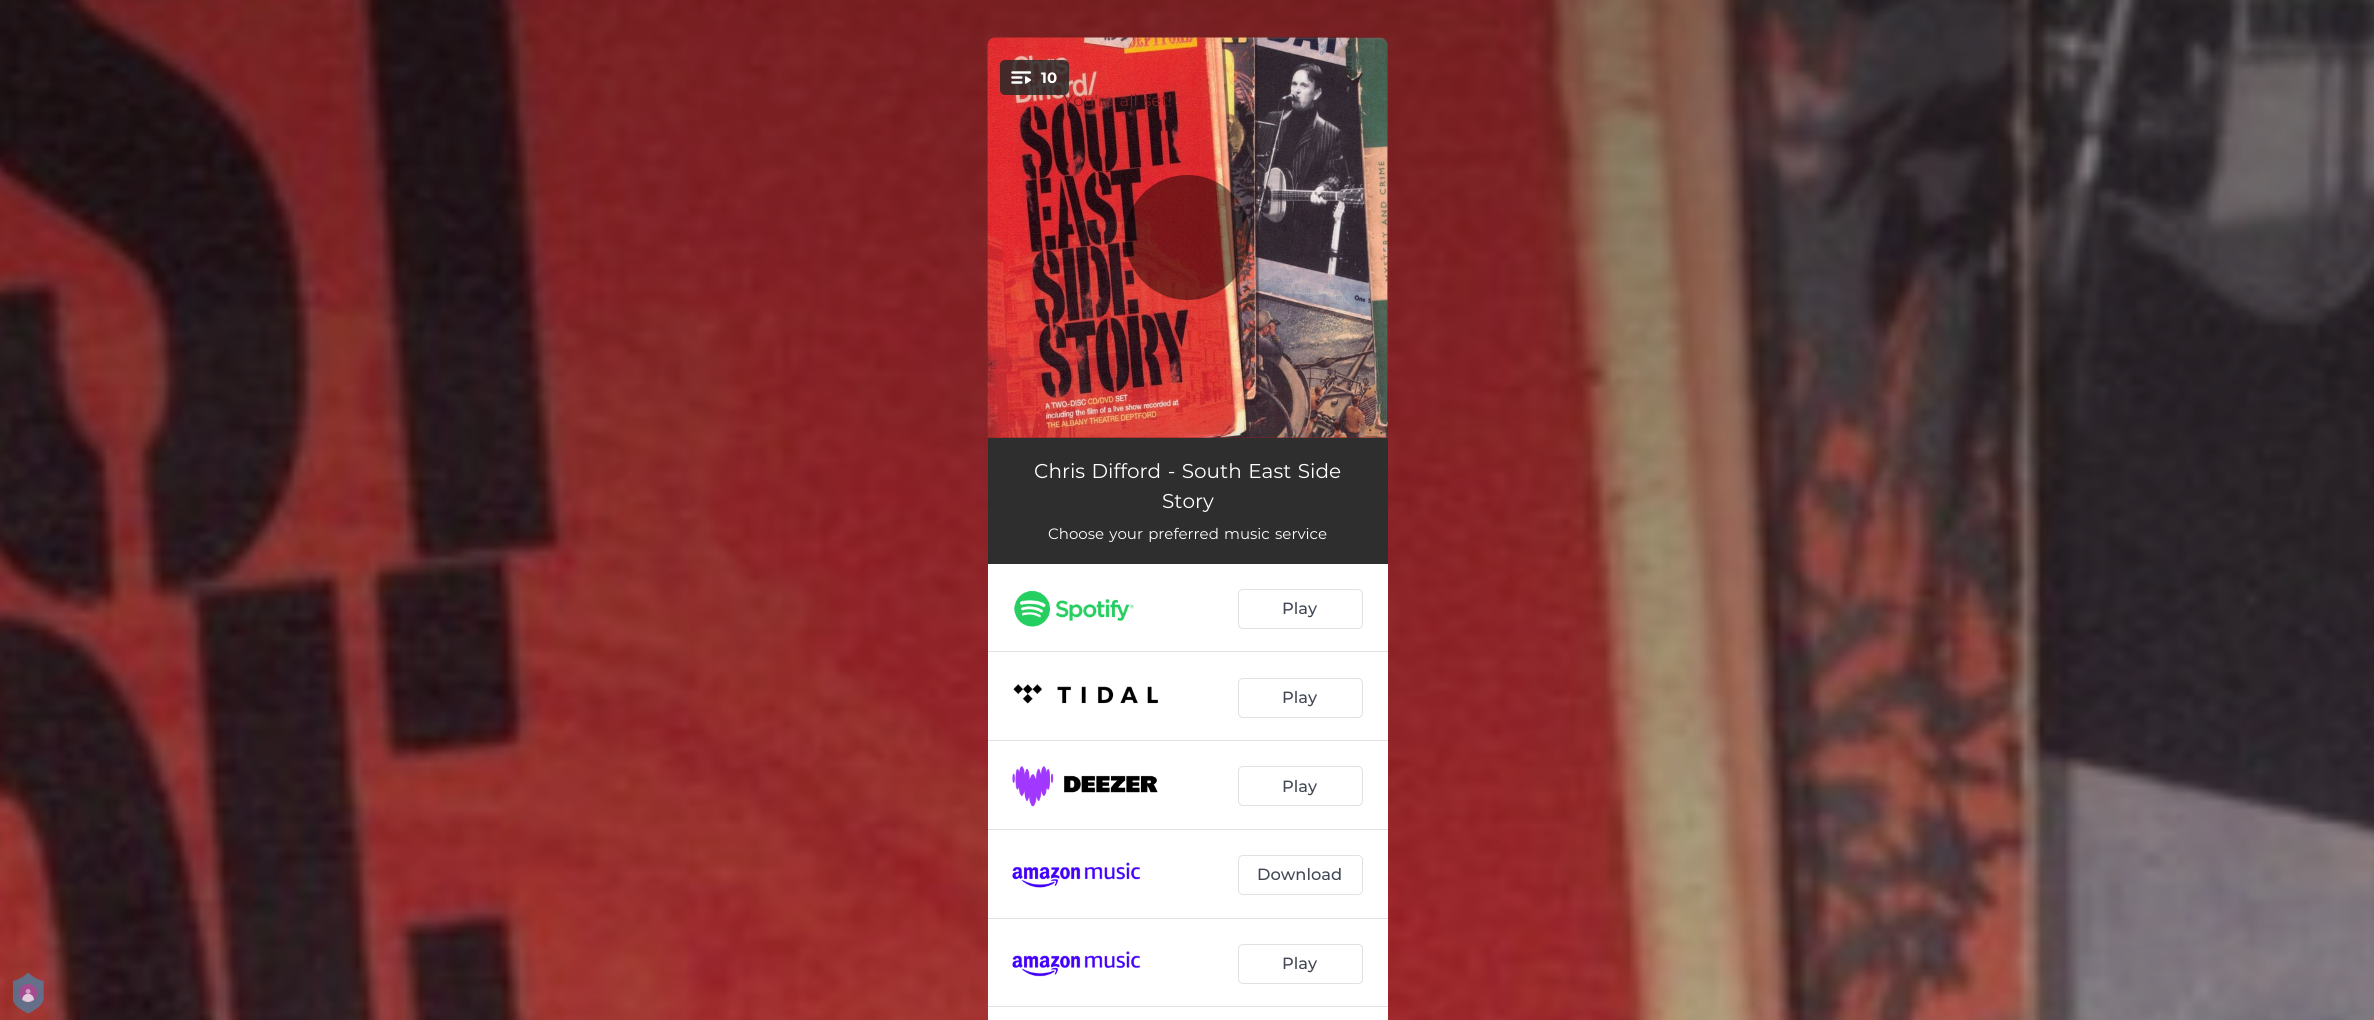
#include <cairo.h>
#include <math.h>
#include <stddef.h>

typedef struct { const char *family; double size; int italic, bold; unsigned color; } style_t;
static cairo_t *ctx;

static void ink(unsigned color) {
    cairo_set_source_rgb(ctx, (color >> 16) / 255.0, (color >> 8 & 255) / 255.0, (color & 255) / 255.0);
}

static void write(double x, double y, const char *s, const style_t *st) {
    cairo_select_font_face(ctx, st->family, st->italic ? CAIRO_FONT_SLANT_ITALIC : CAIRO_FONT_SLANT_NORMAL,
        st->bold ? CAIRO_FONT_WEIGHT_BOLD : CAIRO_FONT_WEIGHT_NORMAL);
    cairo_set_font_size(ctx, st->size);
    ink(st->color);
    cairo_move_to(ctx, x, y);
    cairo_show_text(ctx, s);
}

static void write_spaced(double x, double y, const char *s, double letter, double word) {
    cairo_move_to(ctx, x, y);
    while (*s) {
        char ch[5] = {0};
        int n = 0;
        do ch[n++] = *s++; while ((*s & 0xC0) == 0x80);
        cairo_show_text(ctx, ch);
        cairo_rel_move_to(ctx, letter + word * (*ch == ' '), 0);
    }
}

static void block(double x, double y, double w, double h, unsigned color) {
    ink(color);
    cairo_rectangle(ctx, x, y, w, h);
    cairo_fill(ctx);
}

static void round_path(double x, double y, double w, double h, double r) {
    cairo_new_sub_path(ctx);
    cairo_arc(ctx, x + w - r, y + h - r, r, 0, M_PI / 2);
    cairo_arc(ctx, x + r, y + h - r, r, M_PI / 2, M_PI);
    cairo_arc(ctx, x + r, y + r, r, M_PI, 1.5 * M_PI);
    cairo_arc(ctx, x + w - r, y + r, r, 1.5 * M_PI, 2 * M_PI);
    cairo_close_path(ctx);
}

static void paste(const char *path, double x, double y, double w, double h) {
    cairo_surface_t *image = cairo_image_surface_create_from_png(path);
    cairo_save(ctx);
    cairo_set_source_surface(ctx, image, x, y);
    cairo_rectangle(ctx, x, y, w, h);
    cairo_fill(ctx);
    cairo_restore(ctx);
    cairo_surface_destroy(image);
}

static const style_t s1 = {"Montserrat", 15, 0, 1, 0xffffff};
static const style_t s2 = {"Montserrat", 20, 0, 0, 0xffffff};
static const style_t s3 = {"Montserrat Medium", 16.25, 0, 0, 0x414754};

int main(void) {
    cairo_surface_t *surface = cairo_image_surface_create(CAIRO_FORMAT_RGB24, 2374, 1020);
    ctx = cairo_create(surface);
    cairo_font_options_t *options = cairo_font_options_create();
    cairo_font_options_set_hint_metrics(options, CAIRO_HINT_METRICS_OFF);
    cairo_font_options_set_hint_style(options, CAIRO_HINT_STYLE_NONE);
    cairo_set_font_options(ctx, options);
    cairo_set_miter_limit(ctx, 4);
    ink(0xffffff);
    cairo_paint(ctx);
    paste("pic1.png", 0, 0, 2374, 1020);
    paste("pic2.png", 987, 37, 401, 401);
    cairo_select_font_face(ctx, "Montserrat", CAIRO_FONT_SLANT_NORMAL, CAIRO_FONT_WEIGHT_NORMAL);
    cairo_set_font_size(ctx, 16.25);
    ink(0x792125);
    write_spaced(1063, 106, "You're all set!", 0, 1.25);
    cairo_set_source_rgba(ctx, 0.157, 0.157, 0.157, 0.85);
    round_path(1000, 60, 69, 35, 5);
    cairo_fill(ctx);
    paste("pic3.png", 1011, 71, 20, 13);
    write(1041, 83, "10", &s1);
    cairo_set_source_rgba(ctx, 0, 0, 0, 0.45);
    cairo_new_path(ctx);
    cairo_arc(ctx, 1187.5, 237.5, 62.5, 0, 2 * M_PI);
    cairo_fill(ctx);
    block(988, 438, 400, 126, 0x2e2e2e);
    cairo_select_font_face(ctx, "Montserrat", CAIRO_FONT_SLANT_NORMAL, CAIRO_FONT_WEIGHT_NORMAL);
    cairo_set_font_size(ctx, 20);
    ink(0xffffff);
    write_spaced(1034, 478, "Chris Difford - South East Side", 0, 1.25);
    write(1162, 508, "Story", &s2);
    cairo_set_font_size(ctx, 15);
    write_spaced(1048, 539, "Choose your preferred music service", 0, 1.25);
    block(988, 564, 400, 456, 0xffffff);
    block(988, 651, 400, 1, 0xe1e1e4);
    paste("pic4.png", 1014, 590, 120, 37);
    round_path(1238.5, 589.5, 124, 39, 4.5);
    cairo_set_line_width(ctx, 1);
    cairo_stroke(ctx);
    write(1282, 614, "Play", &s3);
    block(988, 740, 400, 1, 0xe1e1e4);
    paste("pic5.png", 1013, 684, 145, 20);
    round_path(1238.5, 678.5, 124, 39, 4.5);
    cairo_stroke(ctx);
    write(1282, 703, "Play", &s3);
    block(988, 829, 400, 1, 0xe1e1e4);
    paste("pic6.png", 1012, 766, 146, 41);
    round_path(1238.5, 766.5, 124, 39, 4.5);
    cairo_stroke(ctx);
    write(1282, 792, "Play", &s3);
    block(988, 918, 400, 1, 0xe1e1e4);
    paste("pic7.png", 1012, 862, 128, 26);
    round_path(1238.5, 855.5, 124, 39, 4.5);
    cairo_stroke(ctx);
    write(1257, 880, "Download", &s3);
    block(988, 1006, 400, 1, 0xe1e1e4);
    paste("pic8.png", 1012, 951, 128, 26);
    round_path(1238.5, 944.5, 124, 39, 4.5);
    cairo_stroke(ctx);
    write(1282, 969, "Play", &s3);
    paste("pic9.png", 13, 973, 31, 41);
    cairo_surface_write_to_png(surface, "screenshot.png");
    cairo_font_options_destroy(options);
    cairo_destroy(ctx);
    cairo_surface_destroy(surface);
    return 0;
}
